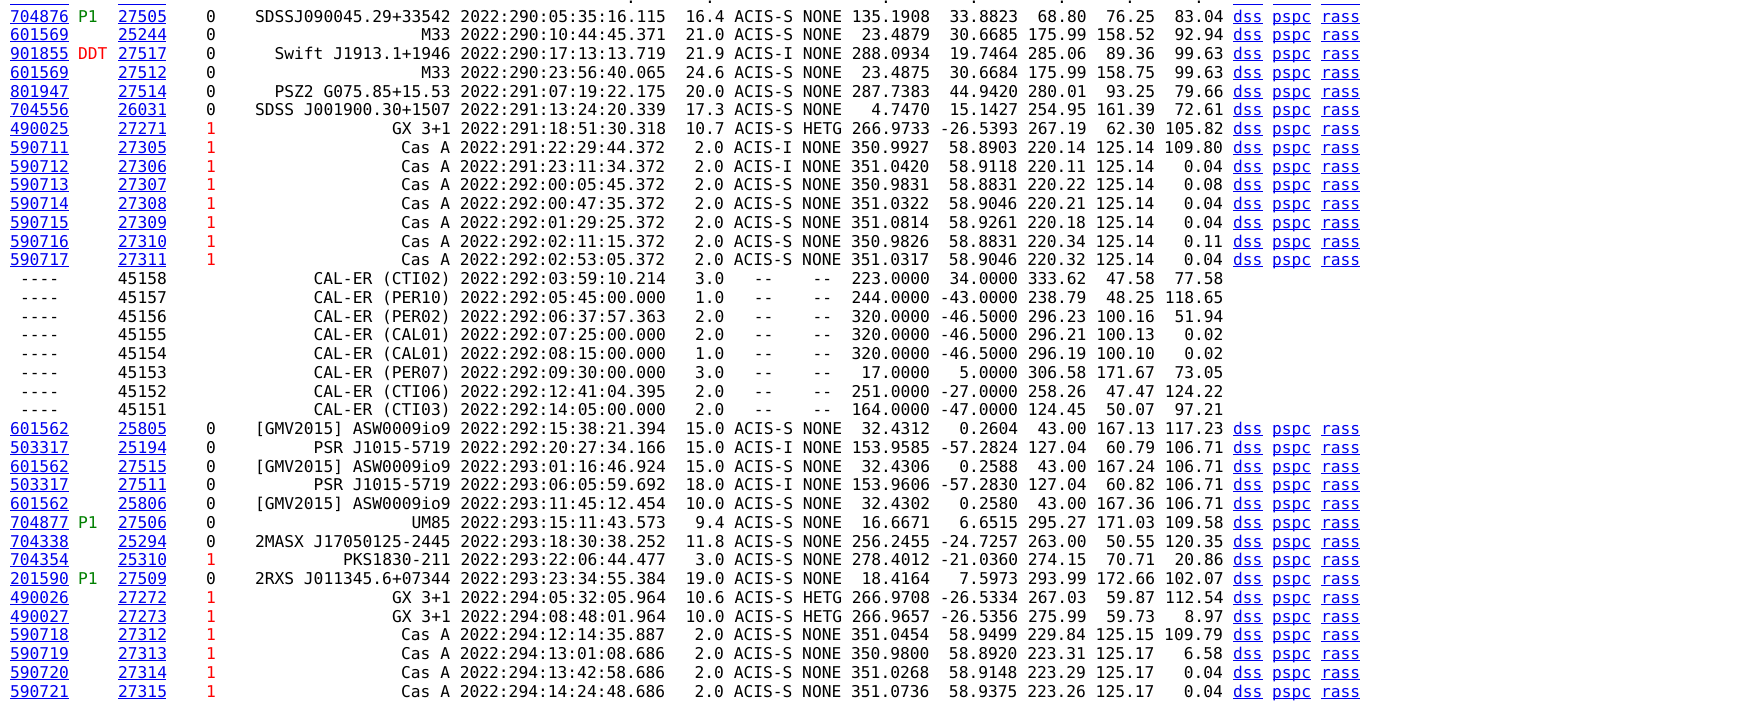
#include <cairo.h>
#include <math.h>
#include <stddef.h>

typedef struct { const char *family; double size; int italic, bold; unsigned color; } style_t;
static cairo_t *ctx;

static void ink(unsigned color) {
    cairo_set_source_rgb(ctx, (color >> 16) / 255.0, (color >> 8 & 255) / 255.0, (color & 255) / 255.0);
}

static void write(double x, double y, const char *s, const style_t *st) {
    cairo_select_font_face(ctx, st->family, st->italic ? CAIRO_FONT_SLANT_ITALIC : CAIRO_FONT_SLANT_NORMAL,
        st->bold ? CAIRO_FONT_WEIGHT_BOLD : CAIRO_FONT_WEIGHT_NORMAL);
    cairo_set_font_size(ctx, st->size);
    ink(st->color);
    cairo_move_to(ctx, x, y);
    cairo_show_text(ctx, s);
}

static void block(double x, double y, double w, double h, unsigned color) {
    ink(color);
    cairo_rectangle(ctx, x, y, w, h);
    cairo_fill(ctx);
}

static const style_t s1 = {"DejaVu Sans Mono", 16.25, 0, 0, 0x000000};
static const style_t s2 = {"DejaVu Sans Mono", 16.25, 0, 0, 0x0000ee};
static const style_t s3 = {"DejaVu Sans Mono", 16.25, 0, 0, 0x008000};
static const style_t s4 = {"DejaVu Sans Mono", 16.25, 0, 0, 0xff0000};

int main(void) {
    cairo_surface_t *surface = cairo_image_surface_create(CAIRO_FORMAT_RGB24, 1757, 702);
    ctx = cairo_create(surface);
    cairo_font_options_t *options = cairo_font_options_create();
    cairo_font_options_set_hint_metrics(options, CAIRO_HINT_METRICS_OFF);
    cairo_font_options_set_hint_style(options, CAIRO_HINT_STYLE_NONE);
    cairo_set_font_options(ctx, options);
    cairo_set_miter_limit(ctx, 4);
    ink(0xffffff);
    cairo_paint(ctx);
    write(626, 3, ".", &s1);
    write(705, 3, ".", &s1);
    write(881, 3, ".", &s1);
    write(969, 3, ".", &s1);
    write(1057, 3, ".", &s1);
    write(1125, 3, ".", &s1);
    write(1194, 3, ".", &s1);
    block(10, 4, 59, 1, 0x0000ee);
    block(118, 4, 48, 1, 0x0000ee);
    block(1233, 4, 30, 1, 0x0000ee);
    block(1273, 4, 38, 1, 0x0000ee);
    block(1321, 4, 39, 1, 0x0000ee);
    write(10, 22, "704876", &s2);
    block(10, 23, 59, 1, 0x0000ee);
    write(78, 22, "P1", &s3);
    write(118, 22, "27505", &s2);
    block(118, 23, 48, 1, 0x0000ee);
    write(206, 22, "0    SDSSJ090045.29+33542 2022:290:05:35:16.115  16.4 ACIS-S NONE 135.1908  33.8823  68.80  76.25  83.04", &s1);
    write(1233, 22, "dss", &s2);
    block(1233, 23, 30, 1, 0x0000ee);
    block(1273, 23, 38, 1, 0x0000ee);
    write(1272, 22, "pspc rass", &s2);
    block(1321, 23, 39, 1, 0x0000ee);
    write(10, 40, "601569", &s2);
    block(10, 41, 59, 1, 0x0000ee);
    write(118, 40, "25244", &s2);
    block(118, 41, 48, 1, 0x0000ee);
    write(206, 40, "0                     M33 2022:290:10:44:45.371  21.0 ACIS-S NONE  23.4879  30.6685 175.99 158.52  92.94", &s1);
    write(1233, 40, "dss", &s2);
    block(1233, 41, 30, 1, 0x0000ee);
    block(1273, 41, 38, 1, 0x0000ee);
    write(1272, 40, "pspc rass", &s2);
    block(1321, 41, 39, 1, 0x0000ee);
    write(10, 59, "901855", &s2);
    block(10, 60, 59, 1, 0x0000ee);
    write(78, 59, "DDT", &s4);
    write(118, 59, "27517", &s2);
    block(118, 60, 48, 1, 0x0000ee);
    write(206, 59, "0      Swift J1913.1+1946 2022:290:17:13:13.719  21.9 ACIS-I NONE 288.0934  19.7464 285.06  89.36  99.63", &s1);
    write(1233, 59, "dss", &s2);
    block(1233, 60, 30, 1, 0x0000ee);
    block(1273, 60, 38, 1, 0x0000ee);
    write(1272, 59, "pspc rass", &s2);
    block(1321, 60, 39, 1, 0x0000ee);
    write(10, 78, "601569", &s2);
    block(10, 79, 59, 1, 0x0000ee);
    write(118, 78, "27512", &s2);
    block(118, 79, 48, 1, 0x0000ee);
    write(206, 78, "0                     M33 2022:290:23:56:40.065  24.6 ACIS-S NONE  23.4875  30.6684 175.99 158.75  99.63", &s1);
    write(1233, 78, "dss", &s2);
    block(1233, 79, 30, 1, 0x0000ee);
    block(1273, 79, 38, 1, 0x0000ee);
    write(1272, 78, "pspc rass", &s2);
    block(1321, 79, 39, 1, 0x0000ee);
    write(10, 97, "801947", &s2);
    block(10, 98, 59, 1, 0x0000ee);
    write(118, 97, "27514", &s2);
    block(118, 98, 48, 1, 0x0000ee);
    write(206, 97, "0      PSZ2 G075.85+15.53 2022:291:07:19:22.175  20.0 ACIS-S NONE 287.7383  44.9420 280.01  93.25  79.66", &s1);
    write(1233, 97, "dss", &s2);
    block(1233, 98, 30, 1, 0x0000ee);
    block(1273, 98, 38, 1, 0x0000ee);
    write(1272, 97, "pspc rass", &s2);
    block(1321, 98, 39, 1, 0x0000ee);
    write(10, 115, "704556", &s2);
    block(10, 116, 59, 1, 0x0000ee);
    write(118, 115, "26031", &s2);
    block(118, 116, 48, 1, 0x0000ee);
    write(206, 115, "0    SDSS J001900.30+1507 2022:291:13:24:20.339  17.3 ACIS-S NONE   4.7470  15.1427 254.95 161.39  72.61", &s1);
    write(1233, 115, "dss", &s2);
    block(1233, 116, 30, 1, 0x0000ee);
    block(1273, 116, 38, 1, 0x0000ee);
    write(1272, 115, "pspc rass", &s2);
    block(1321, 116, 39, 1, 0x0000ee);
    write(10, 134, "490025", &s2);
    block(10, 135, 59, 1, 0x0000ee);
    write(118, 134, "27271", &s2);
    block(118, 135, 48, 1, 0x0000ee);
    write(206, 134, "1", &s4);
    write(392, 134, "GX 3+1 2022:291:18:51:30.318  10.7 ACIS-S HETG 266.9733 -26.5393 267.19  62.30 105.82", &s1);
    write(1233, 134, "dss", &s2);
    block(1233, 135, 30, 1, 0x0000ee);
    block(1273, 135, 38, 1, 0x0000ee);
    write(1272, 134, "pspc rass", &s2);
    block(1321, 135, 39, 1, 0x0000ee);
    write(10, 153, "590711", &s2);
    block(10, 154, 59, 1, 0x0000ee);
    write(118, 153, "27305", &s2);
    block(118, 154, 48, 1, 0x0000ee);
    write(206, 153, "1", &s4);
    write(401, 153, "Cas A 2022:291:22:29:44.372   2.0 ACIS-I NONE 350.9927  58.8903 220.14 125.14 109.80", &s1);
    write(1233, 153, "dss", &s2);
    block(1233, 154, 30, 1, 0x0000ee);
    block(1273, 154, 38, 1, 0x0000ee);
    write(1272, 153, "pspc rass", &s2);
    block(1321, 154, 39, 1, 0x0000ee);
    write(10, 172, "590712", &s2);
    block(10, 173, 59, 1, 0x0000ee);
    write(118, 172, "27306", &s2);
    block(118, 173, 48, 1, 0x0000ee);
    write(206, 172, "1", &s4);
    write(401, 172, "Cas A 2022:291:23:11:34.372   2.0 ACIS-I NONE 351.0420  58.9118 220.11 125.14   0.04", &s1);
    write(1233, 172, "dss", &s2);
    block(1233, 173, 30, 1, 0x0000ee);
    block(1273, 173, 38, 1, 0x0000ee);
    write(1272, 172, "pspc rass", &s2);
    block(1321, 173, 39, 1, 0x0000ee);
    write(10, 190, "590713", &s2);
    block(10, 191, 59, 1, 0x0000ee);
    write(118, 190, "27307", &s2);
    block(118, 191, 48, 1, 0x0000ee);
    write(206, 190, "1", &s4);
    write(401, 190, "Cas A 2022:292:00:05:45.372   2.0 ACIS-S NONE 350.9831  58.8831 220.22 125.14   0.08", &s1);
    write(1233, 190, "dss", &s2);
    block(1233, 191, 30, 1, 0x0000ee);
    block(1273, 191, 38, 1, 0x0000ee);
    write(1272, 190, "pspc rass", &s2);
    block(1321, 191, 39, 1, 0x0000ee);
    write(10, 209, "590714", &s2);
    block(10, 210, 59, 1, 0x0000ee);
    write(118, 209, "27308", &s2);
    block(118, 210, 48, 1, 0x0000ee);
    write(206, 209, "1", &s4);
    write(401, 209, "Cas A 2022:292:00:47:35.372   2.0 ACIS-S NONE 351.0322  58.9046 220.21 125.14   0.04", &s1);
    write(1233, 209, "dss", &s2);
    block(1233, 210, 30, 1, 0x0000ee);
    block(1273, 210, 38, 1, 0x0000ee);
    write(1272, 209, "pspc rass", &s2);
    block(1321, 210, 39, 1, 0x0000ee);
    write(10, 228, "590715", &s2);
    block(10, 229, 59, 1, 0x0000ee);
    write(118, 228, "27309", &s2);
    block(118, 229, 48, 1, 0x0000ee);
    write(206, 228, "1", &s4);
    write(401, 228, "Cas A 2022:292:01:29:25.372   2.0 ACIS-S NONE 351.0814  58.9261 220.18 125.14   0.04", &s1);
    write(1233, 228, "dss", &s2);
    block(1233, 229, 30, 1, 0x0000ee);
    block(1273, 229, 38, 1, 0x0000ee);
    write(1272, 228, "pspc rass", &s2);
    block(1321, 229, 39, 1, 0x0000ee);
    write(10, 247, "590716", &s2);
    block(10, 248, 59, 1, 0x0000ee);
    write(118, 247, "27310", &s2);
    block(118, 248, 48, 1, 0x0000ee);
    write(206, 247, "1", &s4);
    write(401, 247, "Cas A 2022:292:02:11:15.372   2.0 ACIS-S NONE 350.9826  58.8831 220.34 125.14   0.11", &s1);
    write(1233, 247, "dss", &s2);
    block(1233, 248, 30, 1, 0x0000ee);
    block(1273, 248, 38, 1, 0x0000ee);
    write(1272, 247, "pspc rass", &s2);
    block(1321, 248, 39, 1, 0x0000ee);
    write(10, 265, "590717", &s2);
    block(10, 266, 59, 1, 0x0000ee);
    write(118, 265, "27311", &s2);
    block(118, 266, 48, 1, 0x0000ee);
    write(206, 265, "1", &s4);
    write(401, 265, "Cas A 2022:292:02:53:05.372   2.0 ACIS-S NONE 351.0317  58.9046 220.32 125.14   0.04", &s1);
    write(1233, 265, "dss", &s2);
    block(1233, 266, 30, 1, 0x0000ee);
    block(1273, 266, 38, 1, 0x0000ee);
    write(1272, 265, "pspc rass", &s2);
    block(1321, 266, 39, 1, 0x0000ee);
    write(20, 284, "----      45158               CAL-ER (CTI02) 2022:292:03:59:10.214   3.0   --    --  223.0000  34.0000 333.62  47.58  77.58", &s1);
    write(20, 303, "----      45157               CAL-ER (PER10) 2022:292:05:45:00.000   1.0   --    --  244.0000 -43.0000 238.79  48.25 118.65", &s1);
    write(20, 322, "----      45156               CAL-ER (PER02) 2022:292:06:37:57.363   2.0   --    --  320.0000 -46.5000 296.23 100.16  51.94", &s1);
    write(20, 340, "----      45155               CAL-ER (CAL01) 2022:292:07:25:00.000   2.0   --    --  320.0000 -46.5000 296.21 100.13   0.02", &s1);
    write(20, 359, "----      45154               CAL-ER (CAL01) 2022:292:08:15:00.000   1.0   --    --  320.0000 -46.5000 296.19 100.10   0.02", &s1);
    write(20, 378, "----      45153               CAL-ER (PER07) 2022:292:09:30:00.000   3.0   --    --   17.0000   5.0000 306.58 171.67  73.05", &s1);
    write(20, 397, "----      45152               CAL-ER (CTI06) 2022:292:12:41:04.395   2.0   --    --  251.0000 -27.0000 258.26  47.47 124.22", &s1);
    write(20, 415, "----      45151               CAL-ER (CTI03) 2022:292:14:05:00.000   2.0   --    --  164.0000 -47.0000 124.45  50.07  97.21", &s1);
    write(10, 434, "601562", &s2);
    block(10, 435, 59, 1, 0x0000ee);
    write(118, 434, "25805", &s2);
    block(118, 435, 48, 1, 0x0000ee);
    write(206, 434, "0    [GMV2015] ASW0009io9 2022:292:15:38:21.394  15.0 ACIS-S NONE  32.4312   0.2604  43.00 167.13 117.23", &s1);
    write(1233, 434, "dss", &s2);
    block(1233, 435, 30, 1, 0x0000ee);
    block(1273, 435, 38, 1, 0x0000ee);
    write(1272, 434, "pspc rass", &s2);
    block(1321, 435, 39, 1, 0x0000ee);
    write(10, 453, "503317", &s2);
    block(10, 454, 59, 1, 0x0000ee);
    write(118, 453, "25194", &s2);
    block(118, 454, 48, 1, 0x0000ee);
    write(206, 453, "0          PSR J1015-5719 2022:292:20:27:34.166  15.0 ACIS-I NONE 153.9585 -57.2824 127.04  60.79 106.71", &s1);
    write(1233, 453, "dss", &s2);
    block(1233, 454, 30, 1, 0x0000ee);
    block(1273, 454, 38, 1, 0x0000ee);
    write(1272, 453, "pspc rass", &s2);
    block(1321, 454, 39, 1, 0x0000ee);
    write(10, 472, "601562", &s2);
    block(10, 473, 59, 1, 0x0000ee);
    write(118, 472, "27515", &s2);
    block(118, 473, 48, 1, 0x0000ee);
    write(206, 472, "0    [GMV2015] ASW0009io9 2022:293:01:16:46.924  15.0 ACIS-S NONE  32.4306   0.2588  43.00 167.24 106.71", &s1);
    write(1233, 472, "dss", &s2);
    block(1233, 473, 30, 1, 0x0000ee);
    block(1273, 473, 38, 1, 0x0000ee);
    write(1272, 472, "pspc rass", &s2);
    block(1321, 473, 39, 1, 0x0000ee);
    write(10, 490, "503317", &s2);
    block(10, 491, 59, 1, 0x0000ee);
    write(118, 490, "27511", &s2);
    block(118, 491, 48, 1, 0x0000ee);
    write(206, 490, "0          PSR J1015-5719 2022:293:06:05:59.692  18.0 ACIS-I NONE 153.9606 -57.2830 127.04  60.82 106.71", &s1);
    write(1233, 490, "dss", &s2);
    block(1233, 491, 30, 1, 0x0000ee);
    block(1273, 491, 38, 1, 0x0000ee);
    write(1272, 490, "pspc rass", &s2);
    block(1321, 491, 39, 1, 0x0000ee);
    write(10, 509, "601562", &s2);
    block(10, 510, 59, 1, 0x0000ee);
    write(118, 509, "25806", &s2);
    block(118, 510, 48, 1, 0x0000ee);
    write(206, 509, "0    [GMV2015] ASW0009io9 2022:293:11:45:12.454  10.0 ACIS-S NONE  32.4302   0.2580  43.00 167.36 106.71", &s1);
    write(1233, 509, "dss", &s2);
    block(1233, 510, 30, 1, 0x0000ee);
    block(1273, 510, 38, 1, 0x0000ee);
    write(1272, 509, "pspc rass", &s2);
    block(1321, 510, 39, 1, 0x0000ee);
    write(10, 528, "704877", &s2);
    block(10, 529, 59, 1, 0x0000ee);
    write(78, 528, "P1", &s3);
    write(118, 528, "27506", &s2);
    block(118, 529, 48, 1, 0x0000ee);
    write(206, 528, "0                    UM85 2022:293:15:11:43.573   9.4 ACIS-S NONE  16.6671   6.6515 295.27 171.03 109.58", &s1);
    write(1233, 528, "dss", &s2);
    block(1233, 529, 30, 1, 0x0000ee);
    block(1273, 529, 38, 1, 0x0000ee);
    write(1272, 528, "pspc rass", &s2);
    block(1321, 529, 39, 1, 0x0000ee);
    write(10, 547, "704338", &s2);
    block(10, 548, 59, 1, 0x0000ee);
    write(118, 547, "25294", &s2);
    block(118, 548, 48, 1, 0x0000ee);
    write(206, 547, "0    2MASX J17050125-2445 2022:293:18:30:38.252  11.8 ACIS-S NONE 256.2455 -24.7257 263.00  50.55 120.35", &s1);
    write(1233, 547, "dss", &s2);
    block(1233, 548, 30, 1, 0x0000ee);
    block(1273, 548, 38, 1, 0x0000ee);
    write(1272, 547, "pspc rass", &s2);
    block(1321, 548, 39, 1, 0x0000ee);
    write(10, 565, "704354", &s2);
    block(10, 566, 59, 1, 0x0000ee);
    write(118, 565, "25310", &s2);
    block(118, 566, 48, 1, 0x0000ee);
    write(206, 565, "1", &s4);
    write(343, 565, "PKS1830-211 2022:293:22:06:44.477   3.0 ACIS-S NONE 278.4012 -21.0360 274.15  70.71  20.86", &s1);
    write(1233, 565, "dss", &s2);
    block(1233, 566, 30, 1, 0x0000ee);
    block(1273, 566, 38, 1, 0x0000ee);
    write(1272, 565, "pspc rass", &s2);
    block(1321, 566, 39, 1, 0x0000ee);
    write(10, 584, "201590", &s2);
    block(10, 585, 59, 1, 0x0000ee);
    write(78, 584, "P1", &s3);
    write(118, 584, "27509", &s2);
    block(118, 585, 48, 1, 0x0000ee);
    write(206, 584, "0    2RXS J011345.6+07344 2022:293:23:34:55.384  19.0 ACIS-S NONE  18.4164   7.5973 293.99 172.66 102.07", &s1);
    write(1233, 584, "dss", &s2);
    block(1233, 585, 30, 1, 0x0000ee);
    block(1273, 585, 38, 1, 0x0000ee);
    write(1272, 584, "pspc rass", &s2);
    block(1321, 585, 39, 1, 0x0000ee);
    write(10, 603, "490026", &s2);
    block(10, 604, 59, 1, 0x0000ee);
    write(118, 603, "27272", &s2);
    block(118, 604, 48, 1, 0x0000ee);
    write(206, 603, "1", &s4);
    write(392, 603, "GX 3+1 2022:294:05:32:05.964  10.6 ACIS-S HETG 266.9708 -26.5334 267.03  59.87 112.54", &s1);
    write(1233, 603, "dss", &s2);
    block(1233, 604, 30, 1, 0x0000ee);
    block(1273, 604, 38, 1, 0x0000ee);
    write(1272, 603, "pspc rass", &s2);
    block(1321, 604, 39, 1, 0x0000ee);
    write(10, 622, "490027", &s2);
    block(10, 623, 59, 1, 0x0000ee);
    write(118, 622, "27273", &s2);
    block(118, 623, 48, 1, 0x0000ee);
    write(206, 622, "1", &s4);
    write(392, 622, "GX 3+1 2022:294:08:48:01.964  10.0 ACIS-S HETG 266.9657 -26.5356 275.99  59.73   8.97", &s1);
    write(1233, 622, "dss", &s2);
    block(1233, 623, 30, 1, 0x0000ee);
    block(1273, 623, 38, 1, 0x0000ee);
    write(1272, 622, "pspc rass", &s2);
    block(1321, 623, 39, 1, 0x0000ee);
    write(10, 640, "590718", &s2);
    block(10, 641, 59, 1, 0x0000ee);
    write(118, 640, "27312", &s2);
    block(118, 641, 48, 1, 0x0000ee);
    write(206, 640, "1", &s4);
    write(401, 640, "Cas A 2022:294:12:14:35.887   2.0 ACIS-S NONE 351.0454  58.9499 229.84 125.15 109.79", &s1);
    write(1233, 640, "dss", &s2);
    block(1233, 641, 30, 1, 0x0000ee);
    block(1273, 641, 38, 1, 0x0000ee);
    write(1272, 640, "pspc rass", &s2);
    block(1321, 641, 39, 1, 0x0000ee);
    write(10, 659, "590719", &s2);
    block(10, 660, 59, 1, 0x0000ee);
    write(118, 659, "27313", &s2);
    block(118, 660, 48, 1, 0x0000ee);
    write(206, 659, "1", &s4);
    write(401, 659, "Cas A 2022:294:13:01:08.686   2.0 ACIS-S NONE 350.9800  58.8920 223.31 125.17   6.58", &s1);
    write(1233, 659, "dss", &s2);
    block(1233, 660, 30, 1, 0x0000ee);
    block(1273, 660, 38, 1, 0x0000ee);
    write(1272, 659, "pspc rass", &s2);
    block(1321, 660, 39, 1, 0x0000ee);
    write(10, 678, "590720", &s2);
    block(10, 679, 59, 1, 0x0000ee);
    write(118, 678, "27314", &s2);
    block(118, 679, 48, 1, 0x0000ee);
    write(206, 678, "1", &s4);
    write(401, 678, "Cas A 2022:294:13:42:58.686   2.0 ACIS-S NONE 351.0268  58.9148 223.29 125.17   0.04", &s1);
    write(1233, 678, "dss", &s2);
    block(1233, 679, 30, 1, 0x0000ee);
    block(1273, 679, 38, 1, 0x0000ee);
    write(1272, 678, "pspc rass", &s2);
    block(1321, 679, 39, 1, 0x0000ee);
    write(10, 697, "590721", &s2);
    block(10, 698, 59, 1, 0x0000ee);
    write(118, 697, "27315", &s2);
    block(118, 698, 48, 1, 0x0000ee);
    write(206, 697, "1", &s4);
    write(401, 697, "Cas A 2022:294:14:24:48.686   2.0 ACIS-S NONE 351.0736  58.9375 223.26 125.17   0.04", &s1);
    write(1233, 697, "dss", &s2);
    block(1233, 698, 30, 1, 0x0000ee);
    block(1273, 698, 38, 1, 0x0000ee);
    write(1272, 697, "pspc rass", &s2);
    block(1321, 698, 39, 1, 0x0000ee);
    cairo_surface_write_to_png(surface, "screenshot.png");
    cairo_font_options_destroy(options);
    cairo_destroy(ctx);
    cairo_surface_destroy(surface);
    return 0;
}
